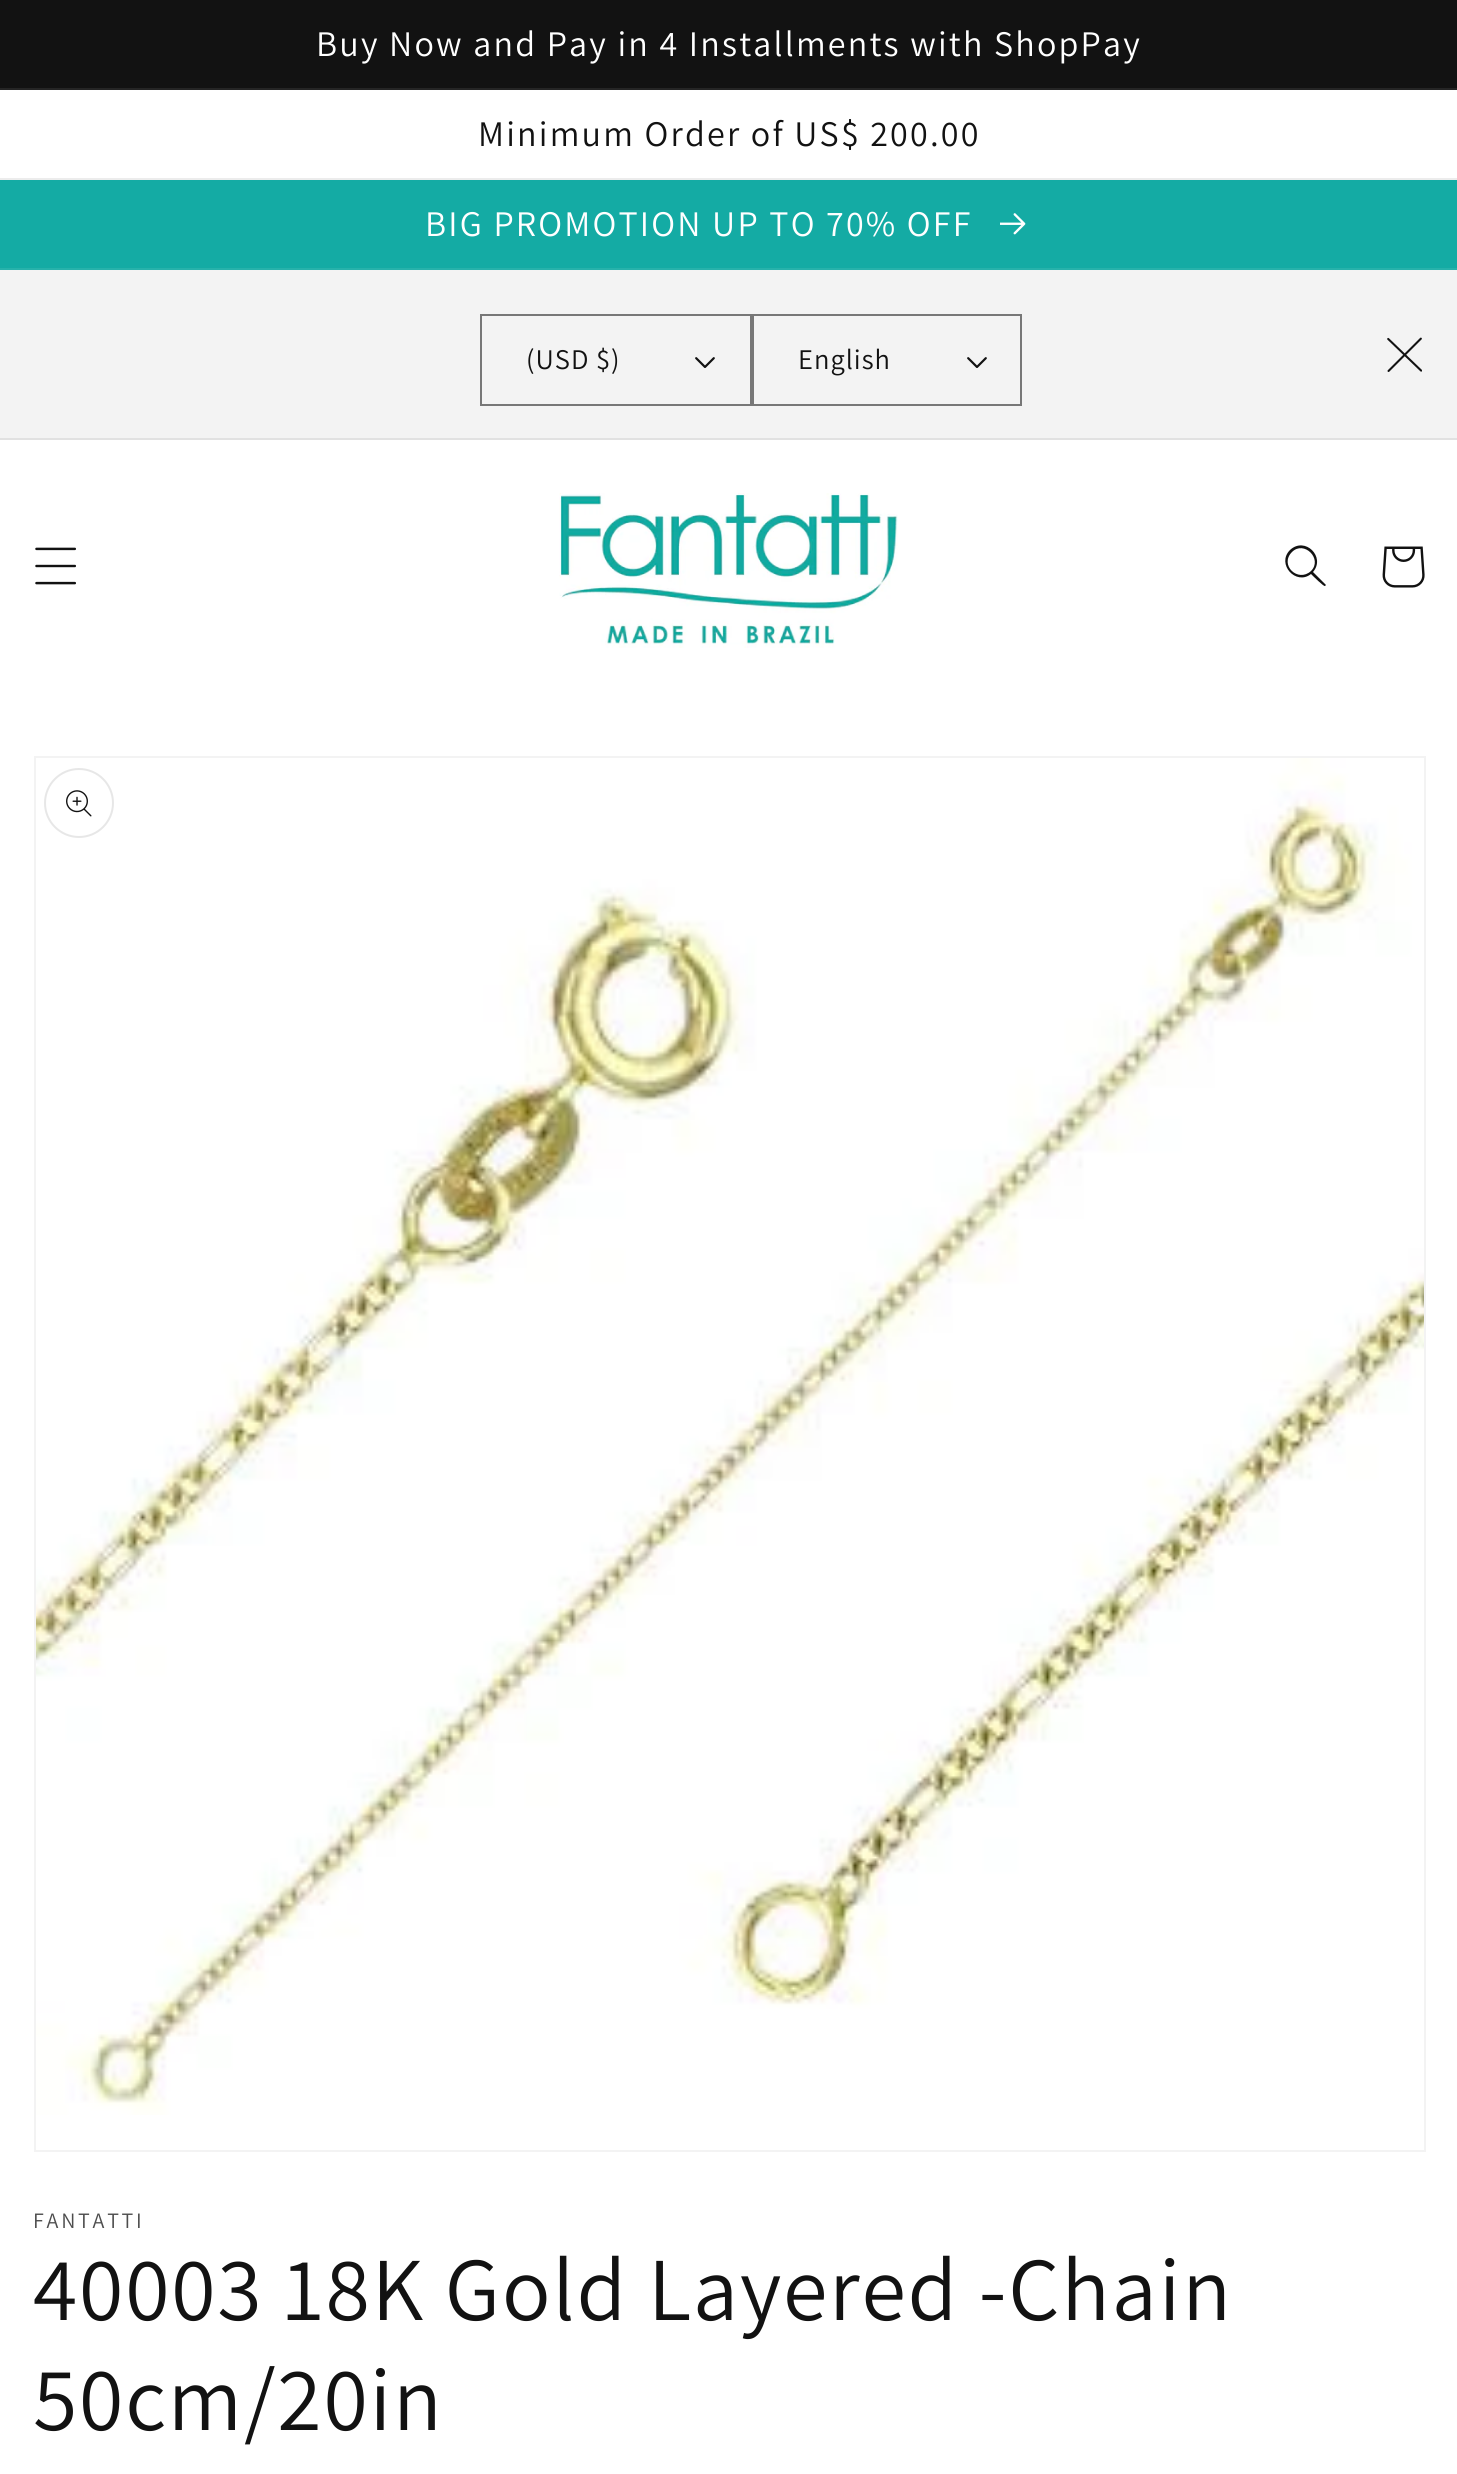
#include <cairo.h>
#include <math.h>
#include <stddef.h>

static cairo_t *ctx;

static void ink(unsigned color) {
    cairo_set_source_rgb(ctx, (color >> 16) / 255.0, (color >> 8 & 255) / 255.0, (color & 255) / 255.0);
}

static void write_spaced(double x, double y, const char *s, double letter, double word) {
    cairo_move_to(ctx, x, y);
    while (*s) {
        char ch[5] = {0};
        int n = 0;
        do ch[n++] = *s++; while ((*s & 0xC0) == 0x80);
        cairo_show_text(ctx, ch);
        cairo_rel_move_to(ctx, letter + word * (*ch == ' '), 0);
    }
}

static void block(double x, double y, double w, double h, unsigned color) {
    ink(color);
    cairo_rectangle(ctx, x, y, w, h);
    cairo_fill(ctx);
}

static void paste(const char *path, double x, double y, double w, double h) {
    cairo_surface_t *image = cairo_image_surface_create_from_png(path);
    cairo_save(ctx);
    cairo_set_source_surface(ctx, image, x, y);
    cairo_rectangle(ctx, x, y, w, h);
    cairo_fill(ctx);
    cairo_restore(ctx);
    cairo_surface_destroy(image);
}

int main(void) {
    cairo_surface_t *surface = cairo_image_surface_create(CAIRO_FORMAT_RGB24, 1457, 2474);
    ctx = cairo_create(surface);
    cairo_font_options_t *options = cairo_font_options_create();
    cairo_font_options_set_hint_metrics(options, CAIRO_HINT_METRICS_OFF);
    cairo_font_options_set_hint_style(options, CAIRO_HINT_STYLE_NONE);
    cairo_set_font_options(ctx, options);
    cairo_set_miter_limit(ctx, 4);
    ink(0xffffff);
    cairo_paint(ctx);
    block(0, 0, 1457, 88, 0x121212);
    block(0, 88, 1457, 2, 0x252525);
    cairo_select_font_face(ctx, "Assistant", CAIRO_FONT_SLANT_NORMAL, CAIRO_FONT_WEIGHT_NORMAL);
    cairo_set_font_size(ctx, 36);
    ink(0xffffff);
    write_spaced(316, 56, "Buy Now and Pay in 4 Installments with ShopPay", 2.2, 0);
    block(0, 178, 1457, 2, 0xececec);
    ink(0x121212);
    write_spaced(478, 146, "Minimum Order of US$ 200.00", 2.2, 0);
    block(0, 180, 1457, 88, 0x14aba4);
    block(0, 268, 1457, 2, 0x27b2ab);
    ink(0xffffff);
    write_spaced(425, 236, "BIG PROMOTION UP TO 70% OFF", 2.2, 0);
    paste("pic1.png", 1000, 213, 26, 22);
    block(0, 270, 1457, 168, 0xf3f3f3);
    block(0, 438, 1457, 2, 0xe1e1e1);
    paste("pic2.png", 695, 357, 20, 11);
    cairo_rectangle(ctx, 481, 315, 270, 90);
    ink(0x777777);
    cairo_stroke(ctx);
    cairo_set_font_size(ctx, 28.5);
    ink(0x121212);
    write_spaced(526, 369, "(USD $)", 1, 0);
    paste("pic2.png", 967, 357, 20, 11);
    cairo_rectangle(ctx, 753, 315, 268, 90);
    ink(0x777777);
    cairo_stroke(ctx);
    ink(0x121212);
    write_spaced(798, 369, "English", 1, 0);
    paste("pic3.png", 1387, 337, 35, 35);
    paste("pic4.png", 35, 547, 41, 38);
    paste("pic5.png", 559, 493, 339, 155);
    cairo_set_fill_rule(ctx, CAIRO_FILL_RULE_EVEN_ODD);
    cairo_new_path(ctx);
    cairo_move_to(ctx, 1311, 571);
    cairo_curve_to(ctx, 1298, 583, 1279, 565, 1292, 552);
    cairo_curve_to(ctx, 1304, 540, 1323, 559, 1311, 571);
    cairo_close_path(ctx);
    cairo_move_to(ctx, 1311, 574);
    cairo_curve_to(ctx, 1296, 586, 1276, 564, 1290, 550);
    cairo_curve_to(ctx, 1305, 536, 1326, 557, 1313, 572);
    cairo_line_to(ctx, 1326, 585);
    cairo_line_to(ctx, 1325, 586);
    cairo_curve_to(ctx, 1324, 587, 1313, 576, 1311, 574);
    cairo_close_path(ctx);
    cairo_fill(ctx);
    paste("pic6.png", 1382, 546, 43, 42);
    cairo_rectangle(ctx, 35, 757, 1390, 1394);
    ink(0xf3f3f3);
    cairo_stroke(ctx);
    paste("pic7.png", 36, 758, 1388, 1357);
    cairo_arc(ctx, 79, 803, 34, 0, 2 * M_PI);
    ink(0xe7e7e7);
    cairo_stroke(ctx);
    paste("pic8.png", 66, 790, 26, 27);
    cairo_set_font_size(ctx, 22);
    ink(0x4d4d4d);
    write_spaced(33, 2228, "FANTATTI", 2.75, 0);
    cairo_set_font_size(ctx, 90);
    ink(0x121212);
    write_spaced(33, 2320, "40003 18K Gold Layered -Chain", 1.8, 0);
    write_spaced(33, 2430, "50cm/20in", 1.8, 0);
    cairo_surface_write_to_png(surface, "screenshot.png");
    cairo_font_options_destroy(options);
    cairo_destroy(ctx);
    cairo_surface_destroy(surface);
    return 0;
}
